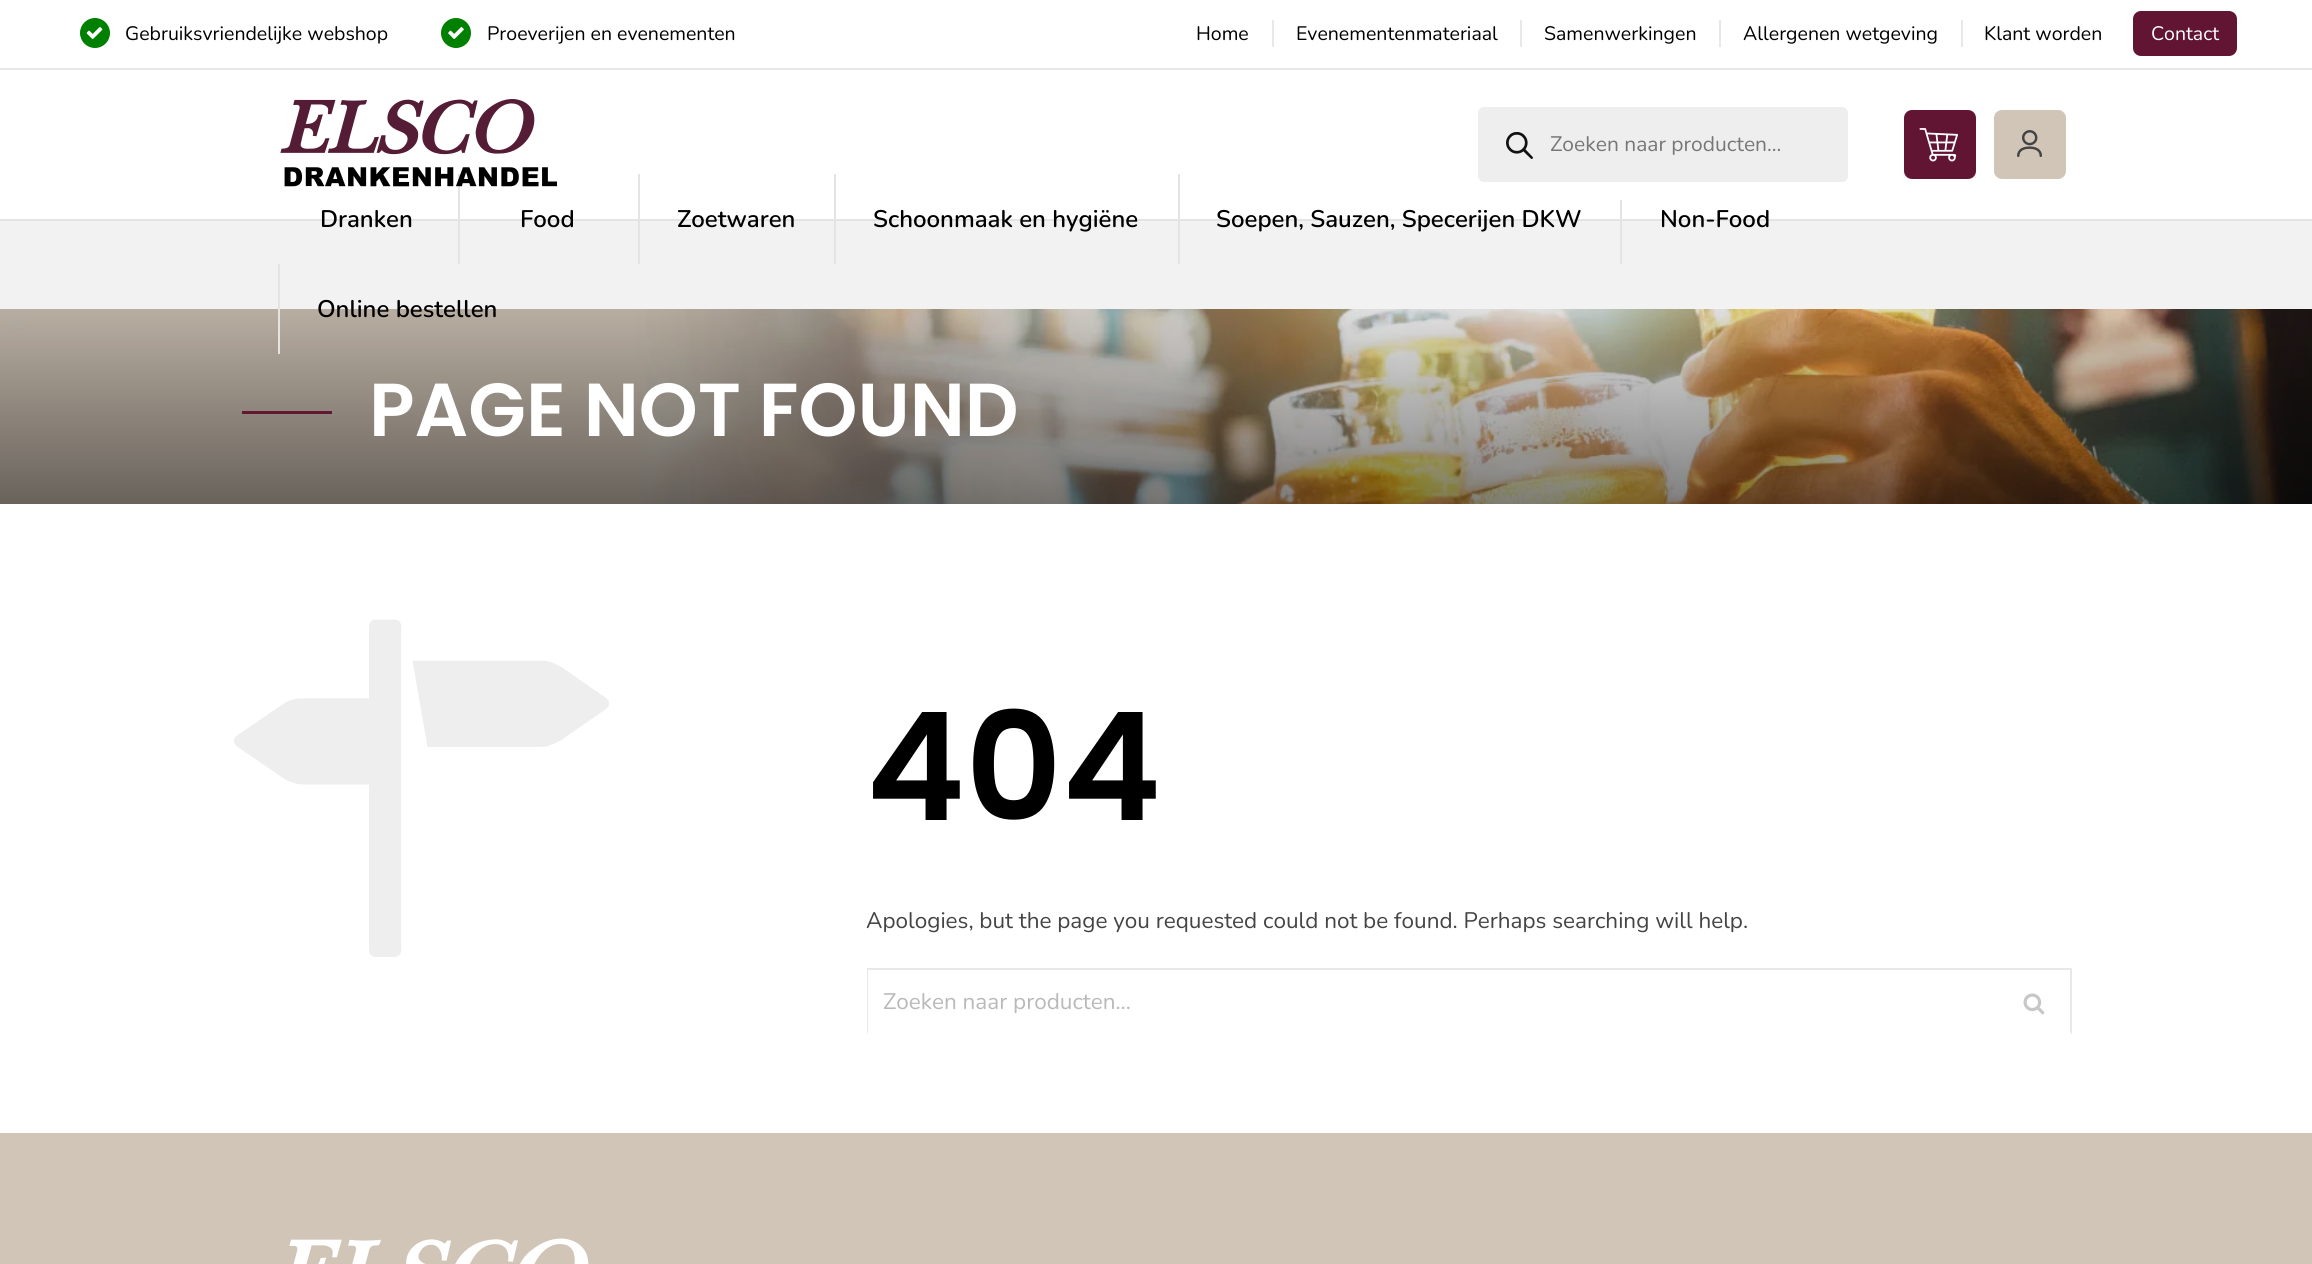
#include <cairo.h>
#include <math.h>
#include <stddef.h>

typedef struct { const char *family; double size; int italic, bold; unsigned color; } style_t;
static cairo_t *ctx;

static void ink(unsigned color) {
    cairo_set_source_rgb(ctx, (color >> 16) / 255.0, (color >> 8 & 255) / 255.0, (color & 255) / 255.0);
}

static void write(double x, double y, const char *s, const style_t *st) {
    cairo_select_font_face(ctx, st->family, st->italic ? CAIRO_FONT_SLANT_ITALIC : CAIRO_FONT_SLANT_NORMAL,
        st->bold ? CAIRO_FONT_WEIGHT_BOLD : CAIRO_FONT_WEIGHT_NORMAL);
    cairo_set_font_size(ctx, st->size);
    ink(st->color);
    cairo_move_to(ctx, x, y);
    cairo_show_text(ctx, s);
}

static void block(double x, double y, double w, double h, unsigned color) {
    ink(color);
    cairo_rectangle(ctx, x, y, w, h);
    cairo_fill(ctx);
}

static void round_path(double x, double y, double w, double h, double r) {
    cairo_new_sub_path(ctx);
    cairo_arc(ctx, x + w - r, y + h - r, r, 0, M_PI / 2);
    cairo_arc(ctx, x + r, y + h - r, r, M_PI / 2, M_PI);
    cairo_arc(ctx, x + r, y + r, r, M_PI, 1.5 * M_PI);
    cairo_arc(ctx, x + w - r, y + r, r, 1.5 * M_PI, 2 * M_PI);
    cairo_close_path(ctx);
}

static void paste(const char *path, double x, double y, double w, double h) {
    cairo_surface_t *image = cairo_image_surface_create_from_png(path);
    cairo_save(ctx);
    cairo_set_source_surface(ctx, image, x, y);
    cairo_rectangle(ctx, x, y, w, h);
    cairo_fill(ctx);
    cairo_restore(ctx);
    cairo_surface_destroy(image);
}

static const style_t s1 = {"Nunito", 19.5, 0, 0, 0x000000};
static const style_t s2 = {"Nunito", 19.5, 0, 0, 0xffffff};
static const style_t s3 = {"Nunito", 21, 0, 0, 0x777777};
static const style_t s4 = {"Nunito SemiBold", 24, 0, 0, 0x000000};
static const style_t s5 = {"Poppins SemiBold", 75, 0, 0, 0xffffff};
static const style_t s6 = {"Poppins SemiBold", 150, 0, 0, 0x000000};
static const style_t s7 = {"Nunito", 22.5, 0, 0, 0x444444};
static const style_t s8 = {"Nunito", 22.5, 0, 0, 0xb9b9b9};

int main(void) {
    cairo_surface_t *surface = cairo_image_surface_create(CAIRO_FORMAT_RGB24, 2312, 1264);
    ctx = cairo_create(surface);
    cairo_font_options_t *options = cairo_font_options_create();
    cairo_font_options_set_hint_metrics(options, CAIRO_HINT_METRICS_OFF);
    cairo_font_options_set_hint_style(options, CAIRO_HINT_STYLE_NONE);
    cairo_set_font_options(ctx, options);
    cairo_set_miter_limit(ctx, 4);
    ink(0xffffff);
    cairo_paint(ctx);
    block(0, 68, 2312, 2, 0xe8e8e8);
    ink(0x008000);
    cairo_arc(ctx, 95, 33, 15, 0, 2 * M_PI);
    cairo_fill(ctx);
    paste("pic1.png", 86, 27, 17, 12);
    write(125, 40, "Gebruiksvriendelijke webshop", &s1);
    ink(0x008000);
    cairo_new_path(ctx);
    cairo_arc(ctx, 456, 33, 15, 0, 2 * M_PI);
    cairo_fill(ctx);
    paste("pic2.png", 448, 27, 16, 12);
    write(487, 40, "Proeverijen en evenementen", &s1);
    write(1196, 40, "Home", &s1);
    block(1272, 20, 2, 27, 0xe8e8e8);
    write(1296, 40, "Evenementenmateriaal", &s1);
    block(1520, 20, 2, 27, 0xe8e8e8);
    write(1544, 40, "Samenwerkingen", &s1);
    block(1719, 20, 2, 27, 0xe8e8e8);
    write(1743, 40, "Allergenen wetgeving", &s1);
    block(1961, 20, 2, 27, 0xe8e8e8);
    write(1984, 40, "Klant worden", &s1);
    ink(0x621533);
    round_path(2133, 11, 104, 45, 8);
    cairo_fill(ctx);
    write(2151, 40, "Contact", &s2);
    block(0, 221, 2312, 88, 0xf2f2f2);
    block(0, 219, 2312, 2, 0xe4e4e4);
    block(458, 174, 2, 90, 0xe4e4e4);
    paste("pic3.png", 280, 99, 277, 88);
    ink(0xeeeeee);
    round_path(1476.5, 105.5, 373, 78, 7.5);
    cairo_fill_preserve(ctx);
    ink(0xffffff);
    cairo_set_line_width(ctx, 3);
    cairo_stroke(ctx);
    paste("pic4.png", 1506, 132, 27, 27);
    write(1550, 151, "Zoeken naar producten...", &s3);
    ink(0x621533);
    round_path(1904, 110, 72, 69, 8);
    cairo_fill(ctx);
    paste("pic5.png", 1919, 128, 39, 34);
    ink(0xd1c5b8);
    round_path(1994, 110, 72, 69, 8);
    cairo_fill(ctx);
    paste("pic6.png", 2017, 130, 25, 27);
    write(320, 227, "Dranken", &s4);
    write(520, 227, "Food", &s4);
    block(638, 174, 2, 90, 0xe4e4e4);
    write(677, 227, "Zoetwaren", &s4);
    block(834, 174, 2, 90, 0xe4e4e4);
    write(873, 227, "Schoonmaak en hygiëne", &s4);
    block(1178, 174, 2, 90, 0xe4e4e4);
    write(1216, 227, "Soepen, Sauzen, Specerijen DKW", &s4);
    block(1620, 200, 2, 64, 0xe4e4e4);
    write(1660, 227, "Non-Food", &s4);
    paste("pic7.png", 0, 309, 2312, 195);
    block(278, 264, 2, 90, 0xe4e4e4);
    write(317, 317, "Online bestellen", &s4);
    block(242, 411, 90, 3, 0x621833);
    write(369, 436, "PAGE NOT FOUND", &s5);
    paste("pic8.png", 234, 619, 375, 338);
    write(866, 820, "404", &s6);
    write(866, 928, "Apologies, but the page you requested could not be found. Perhaps searching will help.", &s7);
    block(867, 968, 1205, 2, 0xe8e8e8);
    cairo_new_path(ctx);
    cairo_move_to(ctx, 2072, 968);
    cairo_line_to(ctx, 2072, 1035);
    cairo_line_to(ctx, 2070, 1032);
    cairo_line_to(ctx, 2070, 969);
    cairo_close_path(ctx);
    cairo_fill(ctx);
    ink(0xffffff);
    cairo_new_path(ctx);
    cairo_move_to(ctx, 2072, 1035);
    cairo_line_to(ctx, 867, 1035);
    cairo_line_to(ctx, 868, 1032);
    cairo_line_to(ctx, 2070, 1032);
    cairo_close_path(ctx);
    cairo_fill(ctx);
    ink(0xe8e8e8);
    cairo_new_path(ctx);
    cairo_move_to(ctx, 867, 1035);
    cairo_line_to(ctx, 867, 968);
    cairo_line_to(ctx, 868, 969);
    cairo_line_to(ctx, 868, 1032);
    cairo_close_path(ctx);
    cairo_fill(ctx);
    write(883, 1009, "Zoeken naar producten...", &s8);
    paste("pic9.png", 2023, 993, 22, 22);
    block(0, 1133, 2312, 131, 0xd1c5b8);
    paste("pic10.png", 289, 1238, 300, 26);
    cairo_surface_write_to_png(surface, "screenshot.png");
    cairo_font_options_destroy(options);
    cairo_destroy(ctx);
    cairo_surface_destroy(surface);
    return 0;
}
